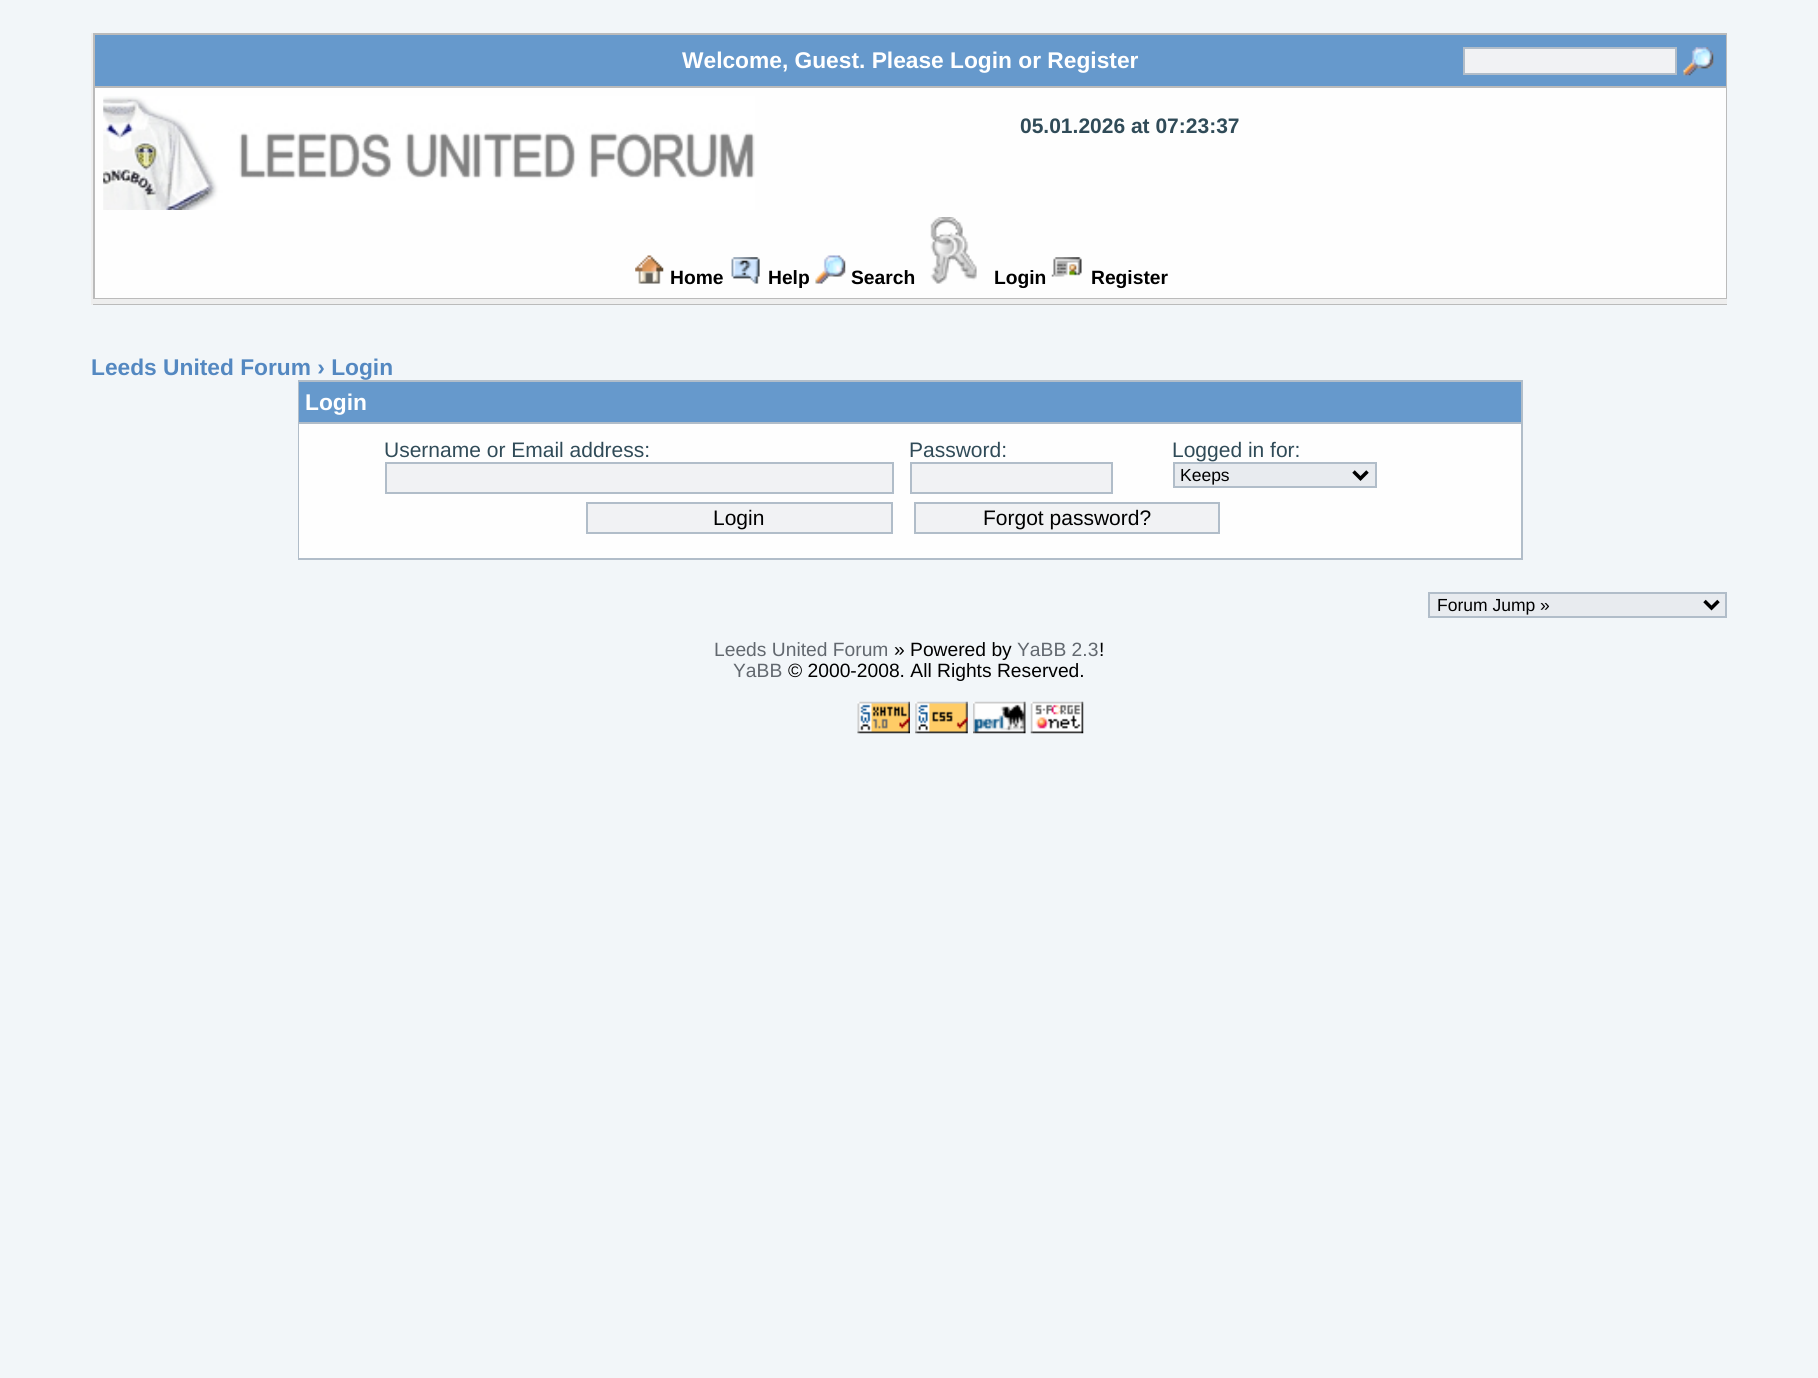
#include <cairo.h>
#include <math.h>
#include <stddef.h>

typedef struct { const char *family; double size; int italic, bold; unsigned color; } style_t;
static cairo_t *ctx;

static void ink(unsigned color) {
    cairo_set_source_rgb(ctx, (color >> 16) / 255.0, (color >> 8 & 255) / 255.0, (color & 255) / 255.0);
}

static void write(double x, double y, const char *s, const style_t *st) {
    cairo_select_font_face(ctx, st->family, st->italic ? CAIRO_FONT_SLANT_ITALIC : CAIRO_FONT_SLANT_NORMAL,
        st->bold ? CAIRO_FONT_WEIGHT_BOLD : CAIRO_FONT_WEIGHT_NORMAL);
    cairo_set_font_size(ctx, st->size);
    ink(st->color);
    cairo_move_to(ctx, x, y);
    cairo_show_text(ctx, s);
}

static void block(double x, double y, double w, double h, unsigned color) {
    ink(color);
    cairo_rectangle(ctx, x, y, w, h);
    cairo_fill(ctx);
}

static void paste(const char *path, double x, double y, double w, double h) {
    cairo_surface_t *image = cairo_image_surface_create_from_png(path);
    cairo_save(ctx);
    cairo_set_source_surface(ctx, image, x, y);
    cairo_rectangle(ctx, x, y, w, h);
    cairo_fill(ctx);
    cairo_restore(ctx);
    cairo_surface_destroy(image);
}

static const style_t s1 = {"Liberation Sans", 22.75, 0, 1, 0xffffff};
static const style_t s2 = {"Liberation Sans", 21, 0, 1, 0x304b58};
static const style_t s3 = {"Liberation Sans", 19.25, 0, 1, 0x000000};
static const style_t s4 = {"Liberation Sans", 22.75, 0, 1, 0x5488c1};
static const style_t s5 = {"Liberation Sans", 21, 0, 0, 0x304b58};
static const style_t s6 = {"Liberation Sans", 17.5, 0, 0, 0x000000};
static const style_t s7 = {"Liberation Sans", 21, 0, 0, 0x000000};
static const style_t s8 = {"Liberation Sans", 19.25, 0, 0, 0x62686f};
static const style_t s9 = {"Liberation Sans", 19.25, 0, 0, 0x000000};

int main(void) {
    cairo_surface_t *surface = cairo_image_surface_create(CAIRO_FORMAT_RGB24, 1818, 1378);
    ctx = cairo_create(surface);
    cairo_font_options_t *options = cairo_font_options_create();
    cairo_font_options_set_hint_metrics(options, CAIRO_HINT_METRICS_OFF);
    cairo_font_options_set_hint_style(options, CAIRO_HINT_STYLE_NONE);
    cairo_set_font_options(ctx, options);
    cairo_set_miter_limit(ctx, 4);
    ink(0xf2f6f9);
    cairo_paint(ctx);
    block(93, 33, 1634, 272, 0xbbbbbb);
    block(91, 299, 1636, 5, 0xeeeeee);
    block(91, 33, 2, 272, 0xeeeeee);
    block(95, 35, 1631, 51, 0x6699cc);
    write(682, 68, "Welcome, Guest. Please Login or Register", &s1);
    ink(0xf1f2f4);
    cairo_rectangle(ctx, 1464, 48, 212, 26);
    cairo_fill_preserve(ctx);
    ink(0xb1bdc9);
    cairo_stroke(ctx);
    paste("pic1.png", 1683, 47, 31, 29);
    block(95, 88, 1631, 210, 0xfefefe);
    paste("pic2.png", 103, 96, 652, 114);
    write(1020, 133, "05.01.2026 at 07:23:37", &s2);
    paste("pic3.png", 635, 255, 29, 29);
    write(670, 284, "Home", &s3);
    paste("pic4.png", 731, 257, 29, 27);
    write(768, 284, "Help", &s3);
    paste("pic5.png", 815, 255, 31, 29);
    write(851, 284, "Search", &s3);
    paste("pic6.png", 930, 217, 47, 67);
    write(994, 284, "Login", &s3);
    paste("pic7.png", 1051, 257, 31, 20);
    write(1091, 284, "Register", &s3);
    write(91, 375, "Leeds United Forum › Login", &s4);
    block(298, 380, 1225, 180, 0xb1bdc9);
    block(299, 382, 1222, 40, 0x6699cc);
    write(305, 410, "Login", &s1);
    block(299, 424, 1222, 134, 0xfefefe);
    write(384, 457, "Username or Email address:", &s5);
    ink(0xf1f2f4);
    cairo_rectangle(ctx, 386, 463, 507, 30);
    cairo_fill_preserve(ctx);
    ink(0xb1bdc9);
    cairo_stroke(ctx);
    write(909, 457, "Password:", &s5);
    ink(0xf1f2f4);
    cairo_rectangle(ctx, 911, 463, 201, 30);
    cairo_fill_preserve(ctx);
    ink(0xb1bdc9);
    cairo_stroke(ctx);
    write(1172, 457, "Logged in for:", &s5);
    ink(0xe8ebef);
    cairo_rectangle(ctx, 1174, 463, 202, 24);
    cairo_fill_preserve(ctx);
    ink(0xb1bdc9);
    cairo_stroke(ctx);
    cairo_new_path(ctx);
    cairo_move_to(ctx, 1353.5, 471.5);
    cairo_line_to(ctx, 1360.5, 478.5);
    cairo_line_to(ctx, 1367.5, 471.5);
    ink(0x000000);
    cairo_set_line_width(ctx, 3.5);
    cairo_stroke(ctx);
    write(1180, 481, "Keeps", &s6);
    ink(0xf1f2f4);
    cairo_rectangle(ctx, 587, 503, 305, 30);
    cairo_fill_preserve(ctx);
    ink(0xb1bdc9);
    cairo_set_line_width(ctx, 2);
    cairo_stroke(ctx);
    write(713, 525, "Login", &s7);
    ink(0xf1f2f4);
    cairo_rectangle(ctx, 915, 503, 304, 30);
    cairo_fill_preserve(ctx);
    ink(0xb1bdc9);
    cairo_stroke(ctx);
    write(983, 525, "Forgot password?", &s7);
    ink(0xe8ebef);
    cairo_rectangle(ctx, 1429, 593, 297, 24);
    cairo_fill_preserve(ctx);
    ink(0xb1bdc9);
    cairo_stroke(ctx);
    cairo_new_path(ctx);
    cairo_move_to(ctx, 1704.5, 601);
    cairo_line_to(ctx, 1711.5, 608);
    cairo_line_to(ctx, 1718.5, 601);
    ink(0x000000);
    cairo_set_line_width(ctx, 3.5);
    cairo_stroke(ctx);
    write(1437, 611, "Forum Jump »", &s6);
    write(714, 656, "Leeds United Forum", &s8);
    write(894, 656, "» Powered by", &s9);
    write(1017, 656, "YaBB 2.3", &s8);
    write(1099, 656, "!", &s9);
    write(733, 677, "YaBB", &s8);
    write(788, 677, "© 2000-2008. All Rights Reserved.", &s9);
    paste("pic8.png", 857, 701, 53, 33);
    paste("pic9.png", 915, 701, 53, 33);
    paste("pic10.png", 973, 701, 53, 33);
    paste("pic11.png", 1030, 701, 54, 33);
    cairo_surface_write_to_png(surface, "screenshot.png");
    cairo_font_options_destroy(options);
    cairo_destroy(ctx);
    cairo_surface_destroy(surface);
    return 0;
}
